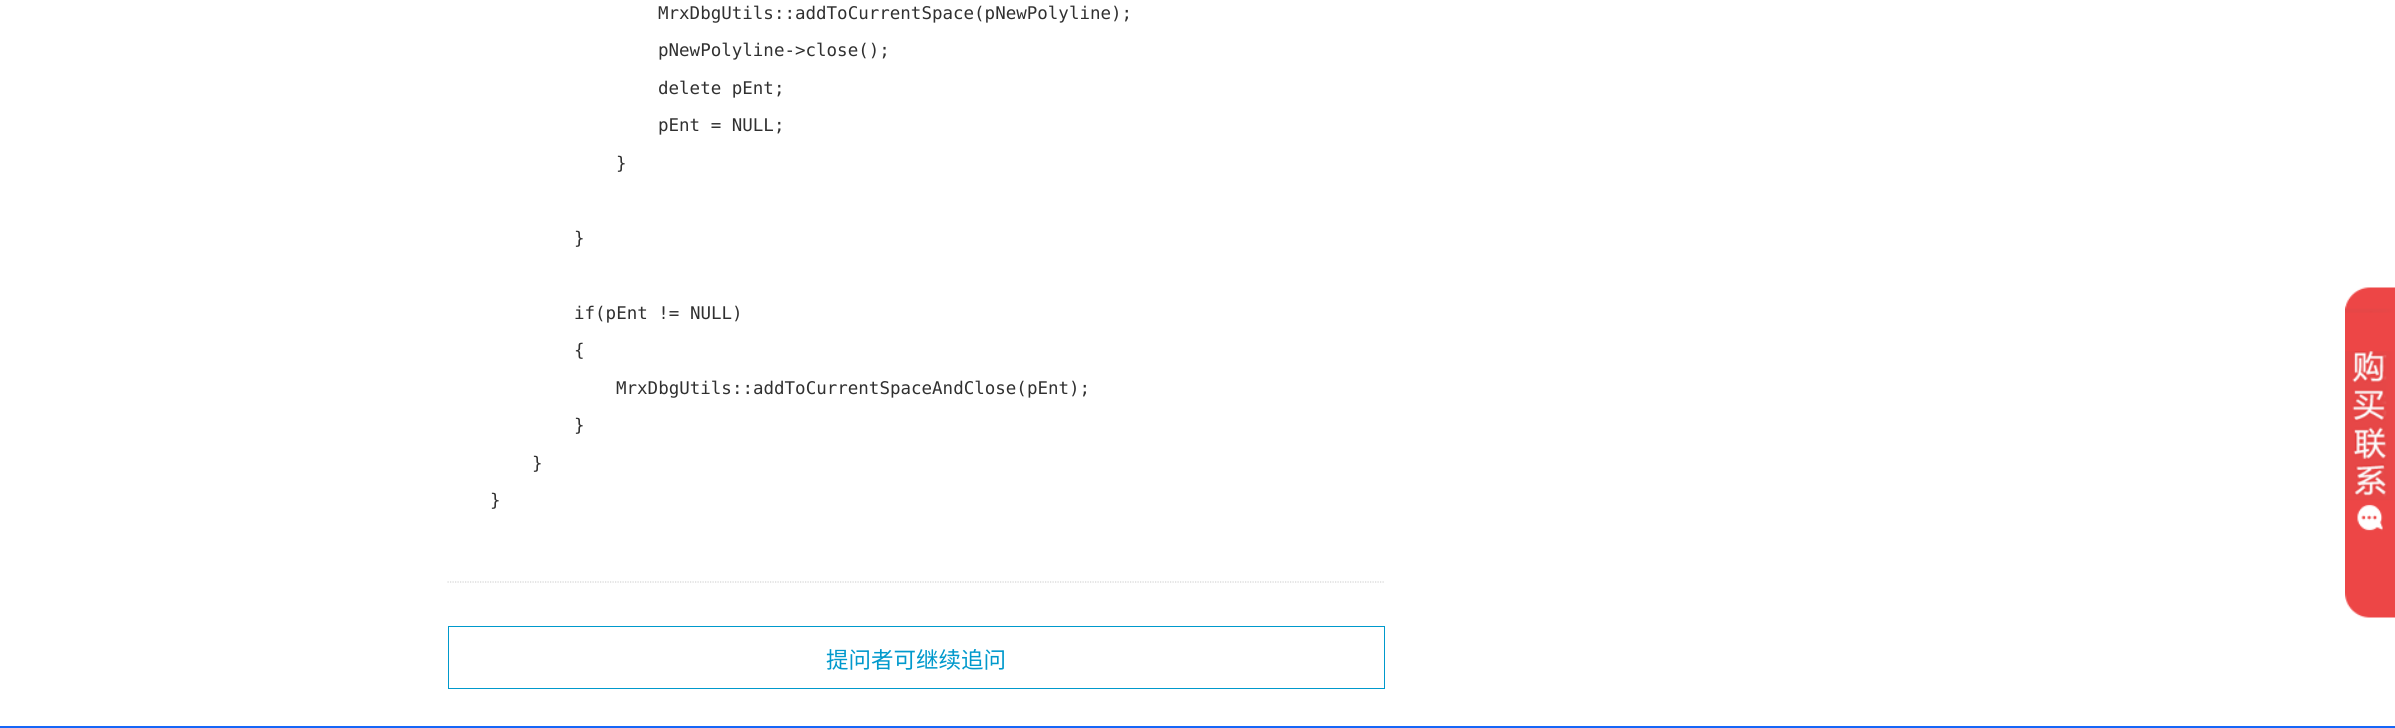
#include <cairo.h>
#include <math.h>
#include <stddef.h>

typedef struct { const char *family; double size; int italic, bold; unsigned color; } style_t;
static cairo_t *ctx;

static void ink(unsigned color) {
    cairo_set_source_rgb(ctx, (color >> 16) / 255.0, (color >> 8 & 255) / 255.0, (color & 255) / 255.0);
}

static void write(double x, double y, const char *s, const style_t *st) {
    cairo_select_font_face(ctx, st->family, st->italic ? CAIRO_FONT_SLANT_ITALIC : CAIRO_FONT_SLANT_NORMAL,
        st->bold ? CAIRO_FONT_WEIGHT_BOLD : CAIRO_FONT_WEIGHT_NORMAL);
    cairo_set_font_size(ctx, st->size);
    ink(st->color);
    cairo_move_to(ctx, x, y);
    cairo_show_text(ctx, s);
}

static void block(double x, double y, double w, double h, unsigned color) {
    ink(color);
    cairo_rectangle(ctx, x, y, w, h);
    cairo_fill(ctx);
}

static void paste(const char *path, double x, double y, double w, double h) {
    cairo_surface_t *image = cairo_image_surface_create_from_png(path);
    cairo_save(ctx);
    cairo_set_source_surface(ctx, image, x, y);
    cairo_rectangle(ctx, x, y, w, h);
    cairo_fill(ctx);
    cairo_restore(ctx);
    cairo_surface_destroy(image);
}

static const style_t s1 = {"DejaVu Sans Mono", 17.5, 0, 0, 0x303030};
static const style_t s2 = {"Noto Sans SC", 22.5, 0, 0, 0x0099cc};

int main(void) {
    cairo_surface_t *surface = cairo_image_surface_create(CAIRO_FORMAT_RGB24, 2395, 728);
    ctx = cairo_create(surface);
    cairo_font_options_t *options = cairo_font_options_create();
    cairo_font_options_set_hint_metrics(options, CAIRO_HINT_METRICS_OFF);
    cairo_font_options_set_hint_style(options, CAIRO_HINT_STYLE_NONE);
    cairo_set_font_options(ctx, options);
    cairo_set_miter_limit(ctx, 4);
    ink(0xffffff);
    cairo_paint(ctx);
    cairo_new_path(ctx);
    cairo_move_to(ctx, 447.5, 582);
    cairo_line_to(ctx, 1385, 582);
    ink(0xd4d4d4);
    cairo_set_line_width(ctx, 1.2);
    cairo_set_dash(ctx, (double[]){1.25, 1.25}, 2, 0);
    cairo_stroke(ctx);
    write(658, 19, "MrxDbgUtils::addToCurrentSpace(pNewPolyline);", &s1);
    write(658, 56, "pNewPolyline->close();", &s1);
    write(658, 94, "delete pEnt;", &s1);
    write(658, 131, "pEnt = NULL;", &s1);
    write(616, 169, "}", &s1);
    write(574, 244, "}", &s1);
    write(574, 319, "if(pEnt != NULL)", &s1);
    write(574, 356, "{", &s1);
    write(616, 394, "MrxDbgUtils::addToCurrentSpaceAndClose(pEnt);", &s1);
    write(574, 431, "}", &s1);
    write(532, 469, "}", &s1);
    write(490, 506, "}", &s1);
    cairo_rectangle(ctx, 448.5, 626.5, 936, 62);
    ink(0x0099cc);
    cairo_set_line_width(ctx, 1);
    cairo_set_dash(ctx, NULL, 0, 0);
    cairo_stroke(ctx);
    write(826, 668, "提问者可继续追问", &s2);
    paste("pic1.png", 2345, 287, 50, 331);
    block(0, 726, 2395, 2, 0x1666f7);
    cairo_surface_write_to_png(surface, "screenshot.png");
    cairo_font_options_destroy(options);
    cairo_destroy(ctx);
    cairo_surface_destroy(surface);
    return 0;
}
